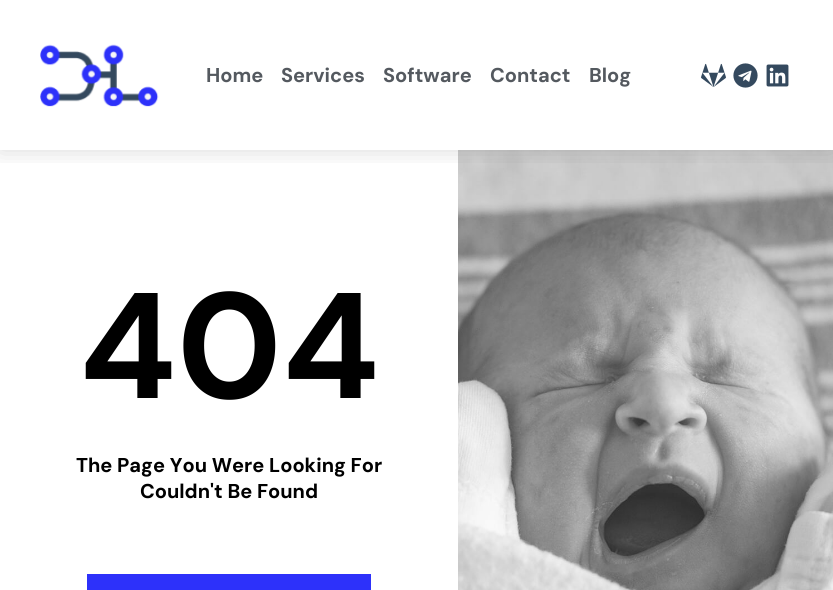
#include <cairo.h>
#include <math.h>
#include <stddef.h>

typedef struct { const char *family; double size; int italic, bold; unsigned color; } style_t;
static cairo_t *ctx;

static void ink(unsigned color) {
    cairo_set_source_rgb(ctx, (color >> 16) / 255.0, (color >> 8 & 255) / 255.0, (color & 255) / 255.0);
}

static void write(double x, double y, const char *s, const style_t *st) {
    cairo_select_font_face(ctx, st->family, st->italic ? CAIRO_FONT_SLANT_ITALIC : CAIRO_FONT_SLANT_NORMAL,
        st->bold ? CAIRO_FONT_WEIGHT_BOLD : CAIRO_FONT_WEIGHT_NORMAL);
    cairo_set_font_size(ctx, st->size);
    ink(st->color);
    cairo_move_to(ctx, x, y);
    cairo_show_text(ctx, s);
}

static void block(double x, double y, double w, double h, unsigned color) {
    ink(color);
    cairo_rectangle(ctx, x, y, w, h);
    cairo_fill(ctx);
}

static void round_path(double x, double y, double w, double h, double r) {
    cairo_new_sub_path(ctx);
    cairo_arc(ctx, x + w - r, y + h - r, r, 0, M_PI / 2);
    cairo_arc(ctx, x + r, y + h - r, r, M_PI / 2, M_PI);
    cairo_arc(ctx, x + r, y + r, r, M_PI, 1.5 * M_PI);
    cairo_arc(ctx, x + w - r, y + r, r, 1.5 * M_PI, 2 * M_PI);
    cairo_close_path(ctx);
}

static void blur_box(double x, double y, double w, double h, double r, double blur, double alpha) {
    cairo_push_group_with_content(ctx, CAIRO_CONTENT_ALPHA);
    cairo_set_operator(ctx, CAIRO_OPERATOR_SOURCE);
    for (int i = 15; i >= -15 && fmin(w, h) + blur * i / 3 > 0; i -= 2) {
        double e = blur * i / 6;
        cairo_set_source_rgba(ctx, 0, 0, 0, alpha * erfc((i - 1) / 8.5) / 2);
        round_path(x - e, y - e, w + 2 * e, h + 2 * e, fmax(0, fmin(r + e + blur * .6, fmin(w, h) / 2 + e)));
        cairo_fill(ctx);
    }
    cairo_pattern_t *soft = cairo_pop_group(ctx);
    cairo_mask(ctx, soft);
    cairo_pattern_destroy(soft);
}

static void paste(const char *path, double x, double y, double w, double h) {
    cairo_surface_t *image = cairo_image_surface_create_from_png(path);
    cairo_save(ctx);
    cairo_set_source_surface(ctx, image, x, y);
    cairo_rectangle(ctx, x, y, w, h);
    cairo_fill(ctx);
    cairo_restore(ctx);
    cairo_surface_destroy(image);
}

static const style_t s1 = {"DM Sans", 20, 0, 1, 0x54595f};
static const style_t s2 = {"DM Sans", 150, 0, 1, 0x000000};
static const style_t s3 = {"DM Sans", 20, 0, 1, 0x000000};

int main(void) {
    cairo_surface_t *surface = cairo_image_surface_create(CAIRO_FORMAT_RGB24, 833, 590);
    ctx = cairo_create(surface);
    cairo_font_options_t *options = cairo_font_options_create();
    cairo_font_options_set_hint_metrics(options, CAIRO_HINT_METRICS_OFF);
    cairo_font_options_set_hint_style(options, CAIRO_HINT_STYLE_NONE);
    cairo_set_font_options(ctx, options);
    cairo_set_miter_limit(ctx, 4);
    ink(0xffffff);
    cairo_paint(ctx);
    paste("pic5.png", 458, 150, 375, 440);
    cairo_save(ctx);
    cairo_rectangle(ctx, 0, 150, 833, 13);
    cairo_clip(ctx);
    ink(0x000000);
    blur_box(0, 0, 833, 150, 0, 12, 0.15);
    cairo_restore(ctx);
    paste("pic1.png", 40, 44, 119, 63);
    write(206, 82, "Home", &s1);
    write(281, 82, "Services", &s1);
    write(383, 82, "Software", &s1);
    write(490, 82, "Contact", &s1);
    write(589, 82, "Blog", &s1);
    paste("pic2.png", 701, 63, 25, 24);
    paste("pic3.png", 733, 63, 25, 25);
    paste("pic4.png", 766, 64, 23, 23);
    write(79, 398, "404", &s2);
    write(76, 472, "The Page You Were Looking For", &s3);
    write(140, 498, "Couldn't Be Found", &s3);
    block(87, 574, 284, 16, 0x2d31fa);
    cairo_surface_write_to_png(surface, "screenshot.png");
    cairo_font_options_destroy(options);
    cairo_destroy(ctx);
    cairo_surface_destroy(surface);
    return 0;
}
